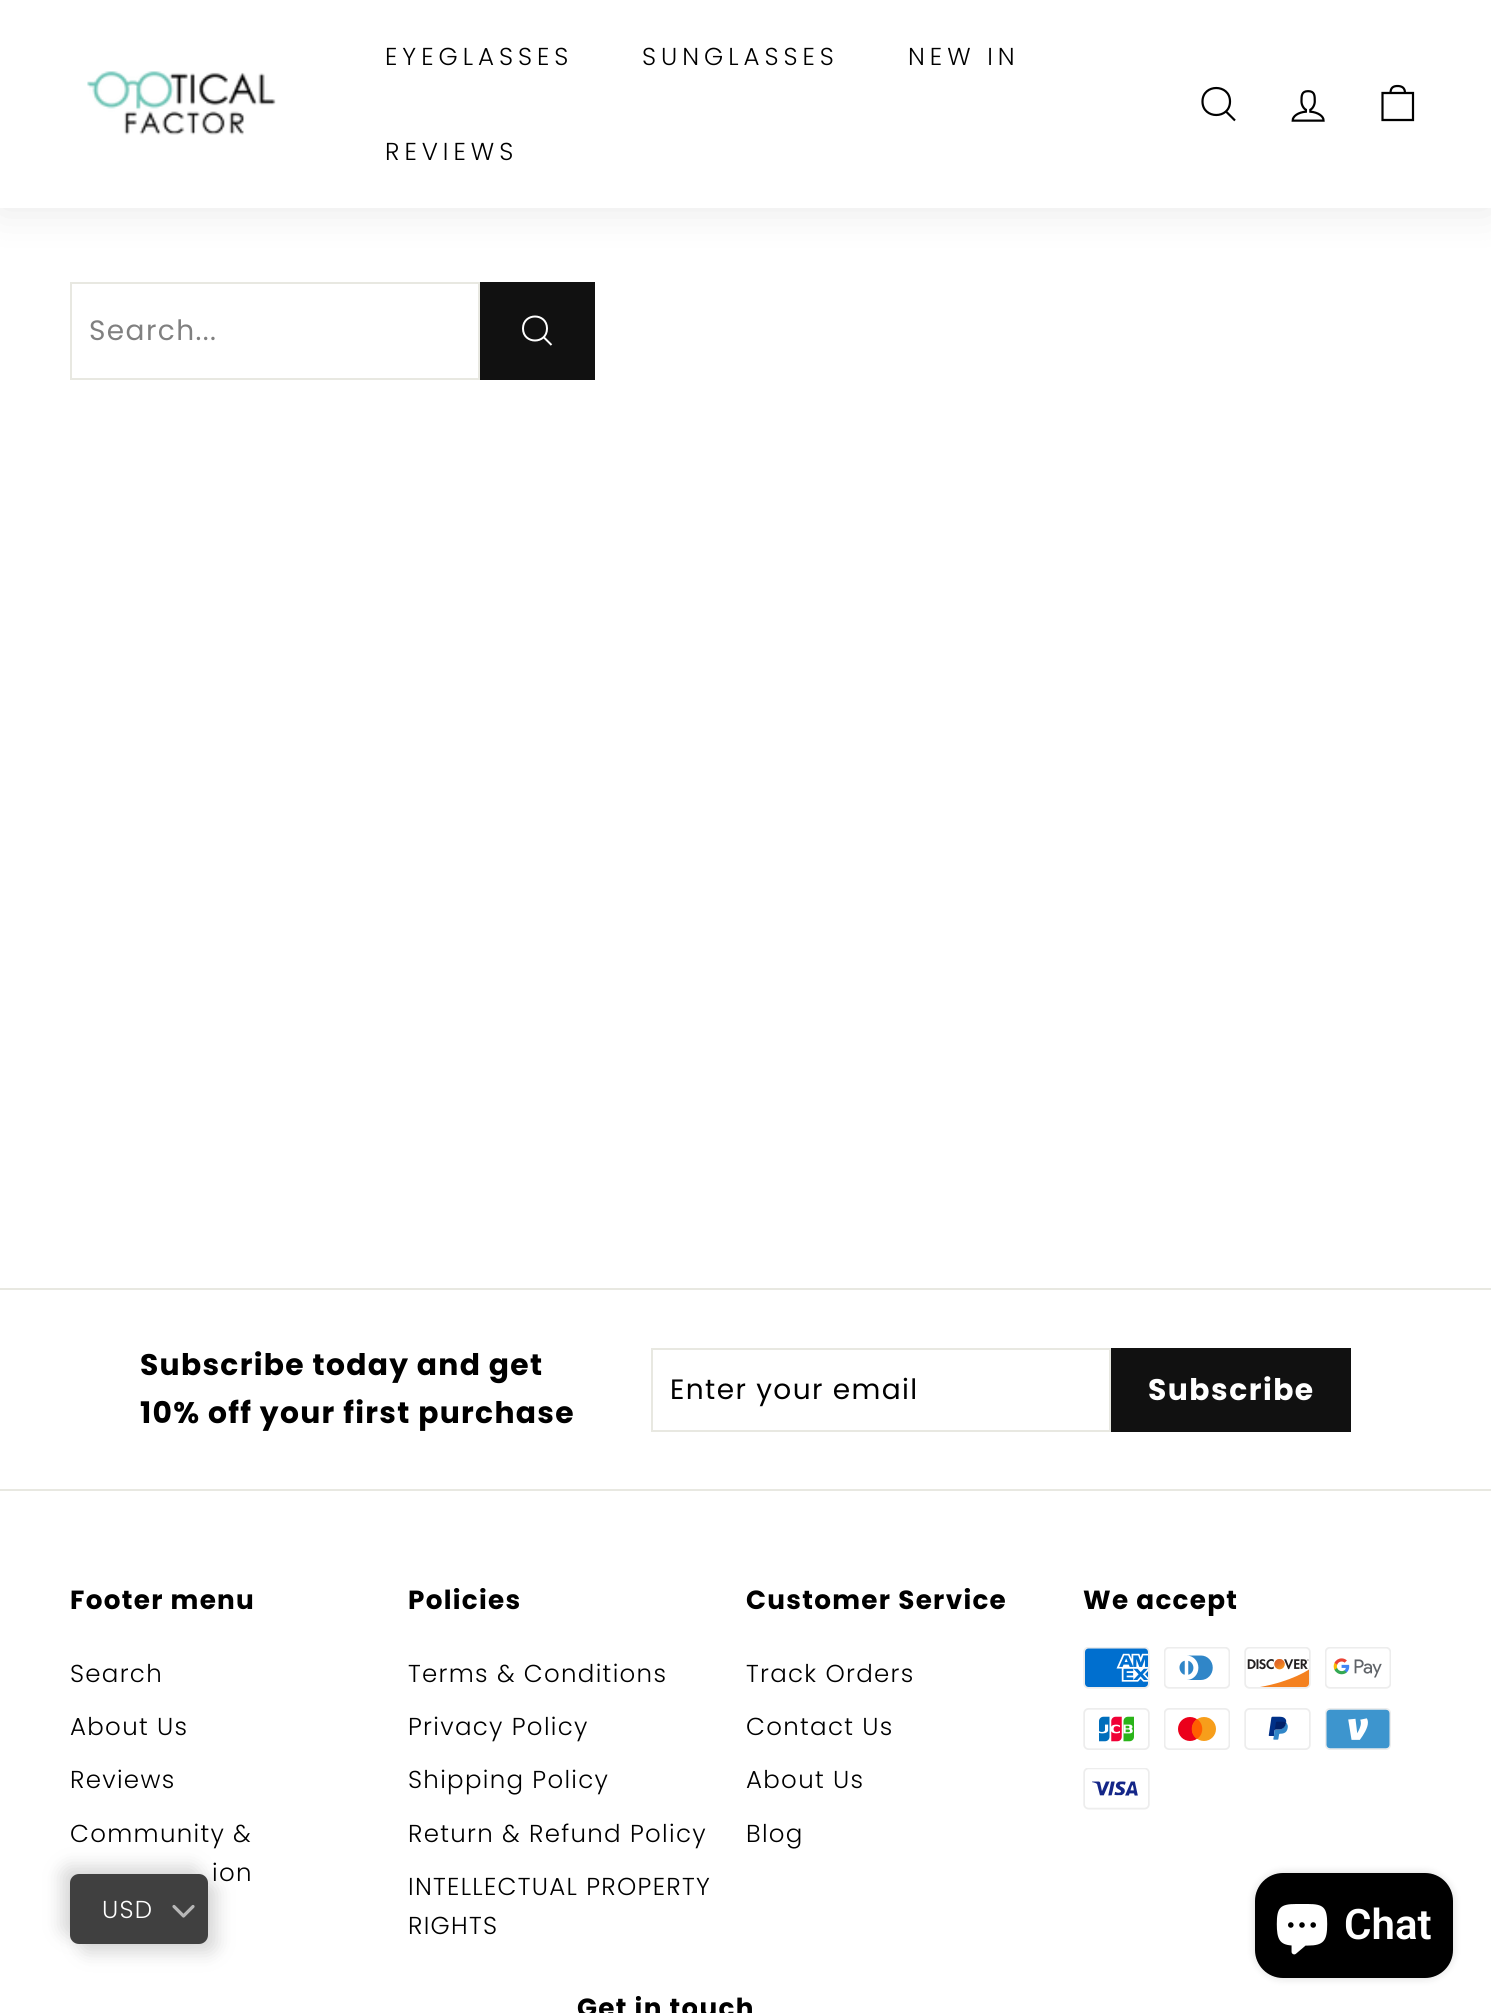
#include <cairo.h>
#include <math.h>
#include <stddef.h>

typedef struct { const char *family; double size; int italic, bold; unsigned color; } style_t;
static cairo_t *ctx;

static void ink(unsigned color) {
    cairo_set_source_rgb(ctx, (color >> 16) / 255.0, (color >> 8 & 255) / 255.0, (color & 255) / 255.0);
}

static void write(double x, double y, const char *s, const style_t *st) {
    cairo_select_font_face(ctx, st->family, st->italic ? CAIRO_FONT_SLANT_ITALIC : CAIRO_FONT_SLANT_NORMAL,
        st->bold ? CAIRO_FONT_WEIGHT_BOLD : CAIRO_FONT_WEIGHT_NORMAL);
    cairo_set_font_size(ctx, st->size);
    ink(st->color);
    cairo_move_to(ctx, x, y);
    cairo_show_text(ctx, s);
}

static void write_spaced(double x, double y, const char *s, double letter, double word) {
    cairo_move_to(ctx, x, y);
    while (*s) {
        char ch[5] = {0};
        int n = 0;
        do ch[n++] = *s++; while ((*s & 0xC0) == 0x80);
        cairo_show_text(ctx, ch);
        cairo_rel_move_to(ctx, letter + word * (*ch == ' '), 0);
    }
}

static void block(double x, double y, double w, double h, unsigned color) {
    ink(color);
    cairo_rectangle(ctx, x, y, w, h);
    cairo_fill(ctx);
}

static void round_path(double x, double y, double w, double h, double r) {
    cairo_new_sub_path(ctx);
    cairo_arc(ctx, x + w - r, y + h - r, r, 0, M_PI / 2);
    cairo_arc(ctx, x + r, y + h - r, r, M_PI / 2, M_PI);
    cairo_arc(ctx, x + r, y + r, r, M_PI, 1.5 * M_PI);
    cairo_arc(ctx, x + w - r, y + r, r, 1.5 * M_PI, 2 * M_PI);
    cairo_close_path(ctx);
}

static void blur_box(double x, double y, double w, double h, double r, double blur, double alpha) {
    cairo_push_group_with_content(ctx, CAIRO_CONTENT_ALPHA);
    cairo_set_operator(ctx, CAIRO_OPERATOR_SOURCE);
    for (int i = 15; i >= -15 && fmin(w, h) + blur * i / 3 > 0; i -= 2) {
        double e = blur * i / 6;
        cairo_set_source_rgba(ctx, 0, 0, 0, alpha * erfc((i - 1) / 8.5) / 2);
        round_path(x - e, y - e, w + 2 * e, h + 2 * e, fmax(0, fmin(r + e + blur * .6, fmin(w, h) / 2 + e)));
        cairo_fill(ctx);
    }
    cairo_pattern_t *soft = cairo_pop_group(ctx);
    cairo_mask(ctx, soft);
    cairo_pattern_destroy(soft);
}

static void paste(const char *path, double x, double y, double w, double h) {
    cairo_surface_t *image = cairo_image_surface_create_from_png(path);
    cairo_save(ctx);
    cairo_set_source_surface(ctx, image, x, y);
    cairo_rectangle(ctx, x, y, w, h);
    cairo_fill(ctx);
    cairo_restore(ctx);
    cairo_surface_destroy(image);
}

static const style_t s1 = {"Roboto SemiBold", 42, 0, 0, 0xffffff};

int main(void) {
    cairo_surface_t *surface = cairo_image_surface_create(CAIRO_FORMAT_RGB24, 1491, 2013);
    ctx = cairo_create(surface);
    cairo_font_options_t *options = cairo_font_options_create();
    cairo_font_options_set_hint_metrics(options, CAIRO_HINT_METRICS_OFF);
    cairo_font_options_set_hint_style(options, CAIRO_HINT_STYLE_NONE);
    cairo_set_font_options(ctx, options);
    cairo_set_miter_limit(ctx, 4);
    ink(0xffffff);
    cairo_paint(ctx);
    ink(0x000000);
    blur_box(0, 0, 1491, 208, 0, 22, 0.1);
    block(0, 0, 1491, 208, 0xffffff);
    paste("pic1.png", 87, 71, 189, 64);
    cairo_select_font_face(ctx, "Poppins Light", CAIRO_FONT_SLANT_NORMAL, CAIRO_FONT_WEIGHT_NORMAL);
    cairo_set_font_size(ctx, 24.5);
    ink(0x000000);
    write_spaced(385, 65, "EYEGLASSES", 5, 0);
    write_spaced(642, 65, "SUNGLASSES", 5, 0);
    write_spaced(908, 65, "NEW IN", 5, 0);
    write_spaced(385, 160, "REVIEWS", 5, 0);
    cairo_new_path(ctx);
    cairo_move_to(ctx, 1230, 101.5);
    cairo_curve_to(ctx, 1230, 119.5, 1202.5, 119.5, 1202.5, 101.5);
    cairo_curve_to(ctx, 1202.5, 83.5, 1230, 83.5, 1230, 101.5);
    cairo_close_path(ctx);
    cairo_move_to(ctx, 1235, 120.5);
    cairo_line_to(ctx, 1226, 111.5);
    cairo_set_line_width(ctx, 2.2);
    cairo_stroke(ctx);
    paste("pic2.png", 1291, 90, 34, 32);
    cairo_new_path(ctx);
    cairo_move_to(ctx, 1390.5, 93);
    cairo_curve_to(ctx, 1390.5, 87.5, 1393.5, 86, 1397.5, 86);
    cairo_curve_to(ctx, 1401.5, 86, 1405, 87.5, 1405, 93);
    cairo_move_to(ctx, 1382.5, 93);
    cairo_line_to(ctx, 1413, 93);
    cairo_line_to(ctx, 1413, 120);
    cairo_line_to(ctx, 1382.5, 120);
    cairo_close_path(ctx);
    cairo_stroke(ctx);
    cairo_rectangle(ctx, 71, 283, 408, 96);
    ink(0xe8e8e1);
    cairo_set_line_width(ctx, 2);
    cairo_stroke(ctx);
    cairo_select_font_face(ctx, "Poppins", CAIRO_FONT_SLANT_NORMAL, CAIRO_FONT_WEIGHT_NORMAL);
    cairo_set_font_size(ctx, 28);
    ink(0x808080);
    write_spaced(89, 340, "Search...", 1.4, 0);
    block(480, 282, 115, 98, 0x111111);
    cairo_new_path(ctx);
    cairo_move_to(ctx, 547, 328.5);
    cairo_curve_to(ctx, 547, 344.5, 523, 344.5, 523, 328.5);
    cairo_curve_to(ctx, 523, 312.5, 547, 312.5, 547, 328.5);
    cairo_close_path(ctx);
    cairo_move_to(ctx, 551.5, 345);
    cairo_line_to(ctx, 544, 337.5);
    ink(0xffffff);
    cairo_stroke(ctx);
    block(0, 1288, 1491, 2, 0xe8e8e1);
    cairo_select_font_face(ctx, "Poppins", CAIRO_FONT_SLANT_NORMAL, CAIRO_FONT_WEIGHT_BOLD);
    cairo_set_font_size(ctx, 29.75);
    ink(0x000000);
    write_spaced(140, 1375, "Subscribe today and get", 1.3, 0);
    write_spaced(140, 1423, "10% off your first purchase", 1.3, 0);
    cairo_rectangle(ctx, 652, 1349, 458, 82);
    ink(0xe8e8e1);
    cairo_stroke(ctx);
    cairo_select_font_face(ctx, "Poppins", CAIRO_FONT_SLANT_NORMAL, CAIRO_FONT_WEIGHT_NORMAL);
    cairo_set_font_size(ctx, 28);
    ink(0x000000);
    write_spaced(670, 1399, "Enter your email", 1.4, 0);
    block(1111, 1348, 240, 84, 0x111111);
    cairo_select_font_face(ctx, "Poppins", CAIRO_FONT_SLANT_NORMAL, CAIRO_FONT_WEIGHT_BOLD);
    cairo_set_font_size(ctx, 29.75);
    ink(0xffffff);
    write_spaced(1148, 1400, "Subscribe", 1.5, 0);
    block(0, 1489, 1491, 2, 0xe8e8e1);
    cairo_set_font_size(ctx, 26.25);
    ink(0x000000);
    write_spaced(70, 1609, "Footer menu", 1.3, 0);
    cairo_select_font_face(ctx, "Poppins Light", CAIRO_FONT_SLANT_NORMAL, CAIRO_FONT_WEIGHT_NORMAL);
    cairo_set_font_size(ctx, 24.5);
    write_spaced(70, 1682, "Search", 1.3, 0);
    write_spaced(70, 1735, "About Us", 1.3, 0);
    write_spaced(70, 1788, "Reviews", 1.3, 0);
    write_spaced(70, 1842, "Community &", 1.3, 0);
    write_spaced(212, 1881, "ion", 1.3, 0);
    cairo_select_font_face(ctx, "Poppins", CAIRO_FONT_SLANT_NORMAL, CAIRO_FONT_WEIGHT_BOLD);
    cairo_set_font_size(ctx, 26.25);
    write_spaced(408, 1609, "Policies", 1.3, 0);
    cairo_select_font_face(ctx, "Poppins Light", CAIRO_FONT_SLANT_NORMAL, CAIRO_FONT_WEIGHT_NORMAL);
    cairo_set_font_size(ctx, 24.5);
    write_spaced(408, 1682, "Terms & Conditions", 1.3, 0);
    write_spaced(408, 1735, "Privacy Policy", 1.3, 0);
    write_spaced(408, 1788, "Shipping Policy", 1.3, 0);
    write_spaced(408, 1842, "Return & Refund Policy", 1.3, 0);
    write_spaced(408, 1895, "INTELLECTUAL PROPERTY", 1.3, 0);
    write_spaced(408, 1934, "RIGHTS", 1.3, 0);
    cairo_select_font_face(ctx, "Poppins", CAIRO_FONT_SLANT_NORMAL, CAIRO_FONT_WEIGHT_BOLD);
    cairo_set_font_size(ctx, 26.25);
    write_spaced(746, 1609, "Customer Service", 1.3, 0);
    cairo_select_font_face(ctx, "Poppins Light", CAIRO_FONT_SLANT_NORMAL, CAIRO_FONT_WEIGHT_NORMAL);
    cairo_set_font_size(ctx, 24.5);
    write_spaced(746, 1682, "Track Orders", 1.3, 0);
    write_spaced(746, 1735, "Contact Us", 1.3, 0);
    write_spaced(746, 1788, "About Us", 1.3, 0);
    write_spaced(746, 1842, "Blog", 1.3, 0);
    cairo_select_font_face(ctx, "Poppins", CAIRO_FONT_SLANT_NORMAL, CAIRO_FONT_WEIGHT_BOLD);
    cairo_set_font_size(ctx, 26.25);
    write_spaced(1083, 1609, "We accept", 1.3, 0);
    paste("pic3.png", 1083, 1647, 67, 42);
    paste("pic4.png", 1164, 1647, 66, 42);
    paste("pic5.png", 1244, 1647, 67, 42);
    paste("pic6.png", 1325, 1647, 66, 42);
    paste("pic7.png", 1083, 1708, 67, 42);
    paste("pic8.png", 1164, 1708, 66, 42);
    paste("pic9.png", 1244, 1708, 67, 42);
    paste("pic10.png", 1325, 1708, 66, 42);
    paste("pic11.png", 1083, 1768, 67, 42);
    write_spaced(577, 2017, "Get in touch", 1.3, 0);
    ink(0x616161);
    blur_box(61, 1866, 139, 70, 9, 9, 0.24);
    blur_box(79, 1883, 138, 70, 9, 9, 0.24);
    ink(0x404040);
    round_path(70, 1874, 138, 70, 9);
    cairo_fill(ctx);
    cairo_select_font_face(ctx, "Poppins Light", CAIRO_FONT_SLANT_NORMAL, CAIRO_FONT_WEIGHT_NORMAL);
    cairo_set_font_size(ctx, 24.5);
    ink(0xffffff);
    write_spaced(102, 1918, "USD", 1.3, 0);
    cairo_new_path(ctx);
    cairo_move_to(ctx, 174, 1906.5);
    cairo_line_to(ctx, 183.5, 1916);
    cairo_line_to(ctx, 193, 1906.5);
    ink(0xb7b7b7);
    cairo_set_line_width(ctx, 3.2);
    cairo_set_line_cap(ctx, CAIRO_LINE_CAP_ROUND);
    cairo_set_line_join(ctx, CAIRO_LINE_JOIN_ROUND);
    cairo_stroke(ctx);
    ink(0x000000);
    blur_box(1255, 1873, 198, 105, 28, 4.5, 0.15);
    ink(0x000000);
    round_path(1255, 1873, 198, 105, 28);
    cairo_fill(ctx);
    paste("pic12.png", 1276, 1904, 52, 51);
    write(1344, 1939, "Chat", &s1);
    cairo_surface_write_to_png(surface, "screenshot.png");
    cairo_font_options_destroy(options);
    cairo_destroy(ctx);
    cairo_surface_destroy(surface);
    return 0;
}
